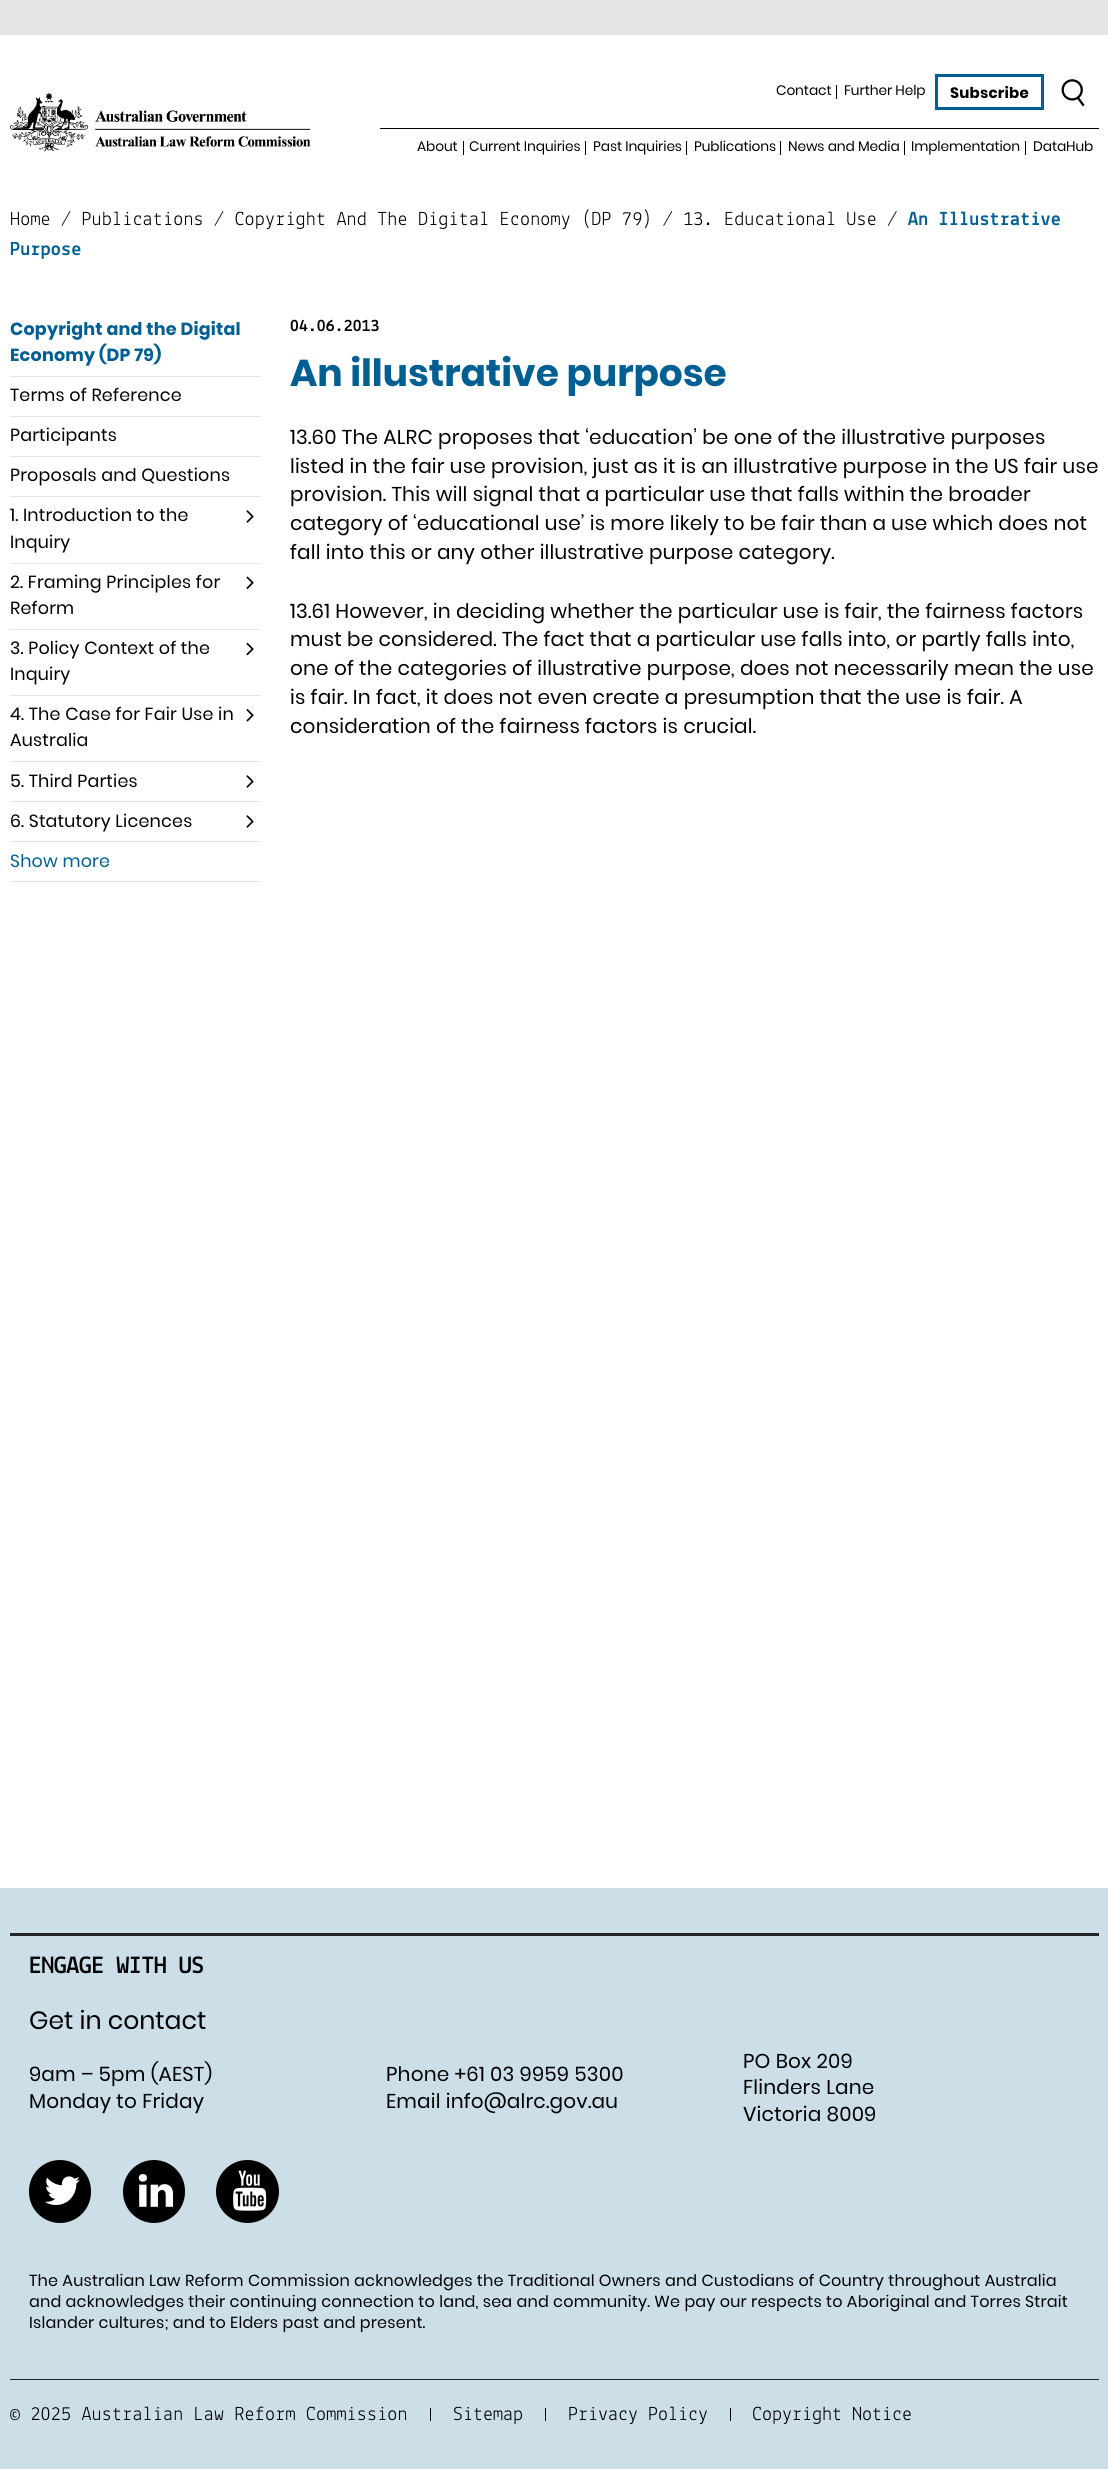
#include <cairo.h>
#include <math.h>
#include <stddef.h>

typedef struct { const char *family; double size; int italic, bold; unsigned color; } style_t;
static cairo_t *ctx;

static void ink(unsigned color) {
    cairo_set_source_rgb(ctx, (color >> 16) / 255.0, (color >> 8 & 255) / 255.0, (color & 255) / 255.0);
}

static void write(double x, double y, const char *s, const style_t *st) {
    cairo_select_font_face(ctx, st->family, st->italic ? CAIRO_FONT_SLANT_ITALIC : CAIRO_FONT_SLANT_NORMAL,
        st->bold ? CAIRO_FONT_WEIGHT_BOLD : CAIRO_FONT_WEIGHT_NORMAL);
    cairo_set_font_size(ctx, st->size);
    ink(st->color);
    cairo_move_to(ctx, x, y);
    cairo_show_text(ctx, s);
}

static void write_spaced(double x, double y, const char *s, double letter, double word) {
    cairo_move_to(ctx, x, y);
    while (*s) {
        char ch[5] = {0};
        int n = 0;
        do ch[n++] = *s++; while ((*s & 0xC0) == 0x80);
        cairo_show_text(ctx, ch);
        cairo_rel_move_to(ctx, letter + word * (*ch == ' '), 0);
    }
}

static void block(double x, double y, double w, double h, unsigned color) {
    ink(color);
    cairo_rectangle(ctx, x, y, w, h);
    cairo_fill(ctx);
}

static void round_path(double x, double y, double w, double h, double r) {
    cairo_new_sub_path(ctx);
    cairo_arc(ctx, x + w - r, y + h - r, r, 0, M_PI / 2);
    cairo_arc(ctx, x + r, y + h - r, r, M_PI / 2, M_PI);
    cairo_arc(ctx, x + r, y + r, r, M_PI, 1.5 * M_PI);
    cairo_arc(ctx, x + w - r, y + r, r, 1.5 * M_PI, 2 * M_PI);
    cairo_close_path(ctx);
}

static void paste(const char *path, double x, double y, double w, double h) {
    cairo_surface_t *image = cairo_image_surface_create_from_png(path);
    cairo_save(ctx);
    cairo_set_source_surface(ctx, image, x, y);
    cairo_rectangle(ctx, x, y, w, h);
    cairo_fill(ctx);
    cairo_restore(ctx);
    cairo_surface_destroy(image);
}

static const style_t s1 = {"Poppins", 37.5, 0, 1, 0x005f92};
static const style_t s2 = {"Lekton", 25, 0, 1, 0x000000};
static const style_t s3 = {"Poppins", 25, 0, 0, 0x000000};
static const style_t s4 = {"Lekton", 20, 0, 0, 0x000000};

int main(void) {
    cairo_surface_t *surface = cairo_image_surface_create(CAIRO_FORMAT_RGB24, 1108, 2469);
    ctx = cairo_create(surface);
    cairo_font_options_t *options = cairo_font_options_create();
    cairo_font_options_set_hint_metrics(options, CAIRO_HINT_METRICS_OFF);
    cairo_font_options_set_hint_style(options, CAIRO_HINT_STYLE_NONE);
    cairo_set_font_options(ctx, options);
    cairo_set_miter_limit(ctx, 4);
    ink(0xffffff);
    cairo_paint(ctx);
    block(0, 0, 1108, 35, 0xe5e5e5);
    paste("pic1.png", 10, 92, 300, 60);
    block(380, 128, 719, 1, 0x000000);
    cairo_select_font_face(ctx, "Poppins", CAIRO_FONT_SLANT_NORMAL, CAIRO_FONT_WEIGHT_NORMAL);
    cairo_set_font_size(ctx, 13.75);
    write_spaced(776, 95, "Contact", -0.1, 0);
    block(836, 85, 1, 14, 0x000000);
    write_spaced(844, 95, "Further Help", -0.1, 0);
    cairo_rectangle(ctx, 936.5, 75.5, 106, 33);
    ink(0x005f92);
    cairo_set_line_width(ctx, 3);
    cairo_stroke(ctx);
    cairo_select_font_face(ctx, "Poppins", CAIRO_FONT_SLANT_NORMAL, CAIRO_FONT_WEIGHT_BOLD);
    cairo_set_font_size(ctx, 15);
    ink(0x000000);
    write_spaced(950, 98, "Subscribe", 0.2, 0);
    paste("pic2.png", 1061, 79, 24, 28);
    cairo_select_font_face(ctx, "Poppins", CAIRO_FONT_SLANT_NORMAL, CAIRO_FONT_WEIGHT_NORMAL);
    cairo_set_font_size(ctx, 13.75);
    write_spaced(417, 151, "About", -0.1, 0);
    block(463, 141, 1, 14, 0x000000);
    write_spaced(469, 151, "Current Inquiries", -0.1, 0);
    block(585, 141, 1, 14, 0x000000);
    write_spaced(593, 151, "Past Inquiries", -0.1, 0);
    block(686, 141, 1, 14, 0x000000);
    write_spaced(694, 151, "Publications", -0.1, 0);
    block(780, 141, 1, 14, 0x000000);
    write_spaced(788, 151, "News and Media", -0.1, 0);
    block(904, 141, 1, 14, 0x000000);
    write_spaced(911, 151, "Implementation", -0.1, 0);
    block(1025, 141, 1, 14, 0x000000);
    write_spaced(1033, 151, "DataHub", -0.1, 0);
    cairo_select_font_face(ctx, "Lekton", CAIRO_FONT_SLANT_NORMAL, CAIRO_FONT_WEIGHT_NORMAL);
    cairo_set_font_size(ctx, 20);
    write_spaced(10, 225, "Home / Publications / Copyright And The Digital Economy (DP 79) / 13. Educational Use /", 0.2, 0);
    cairo_select_font_face(ctx, "Lekton", CAIRO_FONT_SLANT_NORMAL, CAIRO_FONT_WEIGHT_BOLD);
    ink(0x005f92);
    write_spaced(908, 225, "An Illustrative", 0.2, 0);
    write_spaced(10, 255, "Purpose", 0.2, 0);
    block(10, 376, 250, 1, 0xe5e5e5);
    cairo_select_font_face(ctx, "Poppins", CAIRO_FONT_SLANT_NORMAL, CAIRO_FONT_WEIGHT_BOLD);
    cairo_set_font_size(ctx, 17.5);
    ink(0x005f92);
    write_spaced(10, 335, "Copyright and the Digital", 0.2, 0);
    write_spaced(10, 361, "Economy (DP 79)", 0.2, 0);
    block(10, 416, 250, 1, 0xe5e5e5);
    cairo_select_font_face(ctx, "Poppins", CAIRO_FONT_SLANT_NORMAL, CAIRO_FONT_WEIGHT_NORMAL);
    ink(0x000000);
    write_spaced(10, 401, "Terms of Reference", 0.2, 0);
    block(10, 456, 250, 1, 0xe5e5e5);
    ink(0x000000);
    write_spaced(10, 441, "Participants", 0.2, 0);
    block(10, 496, 250, 1, 0xe5e5e5);
    ink(0x000000);
    write_spaced(10, 481, "Proposals and Questions", 0.2, 0);
    block(10, 563, 250, 1, 0xe5e5e5);
    ink(0x000000);
    write_spaced(10, 521, "1. Introduction to the", 0.2, 0);
    write_spaced(10, 548, "Inquiry", 0.2, 0);
    paste("pic3.png", 246, 510, 8, 13);
    block(10, 629, 250, 1, 0xe5e5e5);
    ink(0x000000);
    write_spaced(10, 588, "2. Framing Principles for", 0.2, 0);
    write_spaced(10, 614, "Reform", 0.2, 0);
    paste("pic4.png", 246, 576, 8, 13);
    block(10, 695, 250, 1, 0xe5e5e5);
    ink(0x000000);
    write_spaced(10, 654, "3. Policy Context of the", 0.2, 0);
    write_spaced(10, 680, "Inquiry", 0.2, 0);
    paste("pic5.png", 246, 642, 8, 14);
    block(10, 761, 250, 1, 0xe5e5e5);
    ink(0x000000);
    write_spaced(10, 720, "4. The Case for Fair Use in", 0.2, 0);
    write_spaced(10, 746, "Australia", 0.2, 0);
    paste("pic6.png", 246, 709, 8, 13);
    block(10, 801, 250, 1, 0xe5e5e5);
    ink(0x000000);
    write_spaced(10, 787, "5. Third Parties", 0.2, 0);
    paste("pic3.png", 246, 775, 8, 13);
    block(10, 841, 250, 1, 0xe5e5e5);
    ink(0x000000);
    write_spaced(10, 827, "6. Statutory Licences", 0.2, 0);
    paste("pic3.png", 246, 815, 8, 13);
    block(10, 881, 250, 1, 0xe5e5e5);
    ink(0x005f92);
    write_spaced(10, 867, "Show more", 0.2, 0);
    cairo_select_font_face(ctx, "Lekton", CAIRO_FONT_SLANT_NORMAL, CAIRO_FONT_WEIGHT_BOLD);
    ink(0x000000);
    write_spaced(290, 331, "04.06.2013", 0.2, 0);
    write(290, 386, "An illustrative purpose", &s1);
    cairo_select_font_face(ctx, "Poppins", CAIRO_FONT_SLANT_NORMAL, CAIRO_FONT_WEIGHT_NORMAL);
    cairo_set_font_size(ctx, 20);
    ink(0x000000);
    write_spaced(290, 444, "13.60 The ALRC proposes that ‘education’ be one of the illustrative purposes", 0.2, 0);
    write_spaced(290, 473, "listed in the fair use provision, just as it is an illustrative purpose in the US fair use", 0.2, 0);
    write_spaced(290, 501, "provision. This will signal that a particular use that falls within the broader", 0.2, 0);
    write_spaced(290, 530, "category of ‘educational use’ is more likely to be fair than a use which does not", 0.2, 0);
    write_spaced(290, 559, "fall into this or any other illustrative purpose category.", 0.2, 0);
    write_spaced(290, 618, "13.61 However, in deciding whether the particular use is fair, the fairness factors", 0.2, 0);
    write_spaced(290, 646, "must be considered. The fact that a particular use falls into, or partly falls into,", 0.2, 0);
    write_spaced(290, 675, "one of the categories of illustrative purpose, does not necessarily mean the use", 0.2, 0);
    write_spaced(290, 704, "is fair. In fact, it does not even create a presumption that the use is fair. A", 0.2, 0);
    write_spaced(290, 733, "consideration of the fairness factors is crucial.", 0.2, 0);
    block(0, 1888, 1108, 581, 0xccdfe9);
    block(10, 1933, 1089, 3, 0x252525);
    write(29, 1973, "ENGAGE WITH US", &s2);
    write(29, 2029, "Get in contact", &s3);
    cairo_set_font_size(ctx, 20);
    write_spaced(29, 2081, "9am – 5pm (AEST)", 0.2, 0);
    write_spaced(29, 2108, "Monday to Friday", 0.2, 0);
    write_spaced(386, 2081, "Phone +61 03 9959 5300", 0.2, 0);
    write_spaced(386, 2108, "Email info@alrc.gov.au", 0.2, 0);
    write_spaced(743, 2068, "PO Box 209", 0.2, 0);
    write_spaced(743, 2094, "Flinders Lane", 0.2, 0);
    write_spaced(743, 2121, "Victoria 8009", 0.2, 0);
    round_path(29, 2160, 62, 63, 31);
    cairo_fill(ctx);
    paste("pic7.png", 45, 2176, 35, 29);
    round_path(123, 2160, 62, 63, 31);
    cairo_fill(ctx);
    paste("pic8.png", 138, 2174, 36, 33);
    cairo_arc(ctx, 247.5, 2191.5, 31.5, 0, 2 * M_PI);
    cairo_fill(ctx);
    paste("pic9.png", 233, 2170, 34, 41);
    cairo_set_font_size(ctx, 16);
    write_spaced(29, 2286, "The Australian Law Reform Commission acknowledges the Traditional Owners and Custodians of Country throughout Australia", 0.2, 0);
    write_spaced(29, 2307, "and acknowledges their continuing connection to land, sea and community. We pay our respects to Aboriginal and Torres Strait", 0.2, 0);
    write_spaced(29, 2328, "Islander cultures; and to Elders past and present.", 0.2, 0);
    block(10, 2379, 1089, 1, 0x252525);
    cairo_select_font_face(ctx, "Lekton", CAIRO_FONT_SLANT_NORMAL, CAIRO_FONT_WEIGHT_NORMAL);
    cairo_set_font_size(ctx, 20);
    ink(0x000000);
    write_spaced(10, 2420, "© 2025 Australian Law Reform Commission", 0.2, 0);
    block(430, 2408, 1, 13, 0x000000);
    write(453, 2420, "Sitemap", &s4);
    block(545, 2408, 1, 13, 0x000000);
    write(568, 2420, "Privacy Policy", &s4);
    block(730, 2408, 1, 13, 0x000000);
    write(752, 2420, "Copyright Notice", &s4);
    cairo_surface_write_to_png(surface, "screenshot.png");
    cairo_font_options_destroy(options);
    cairo_destroy(ctx);
    cairo_surface_destroy(surface);
    return 0;
}
